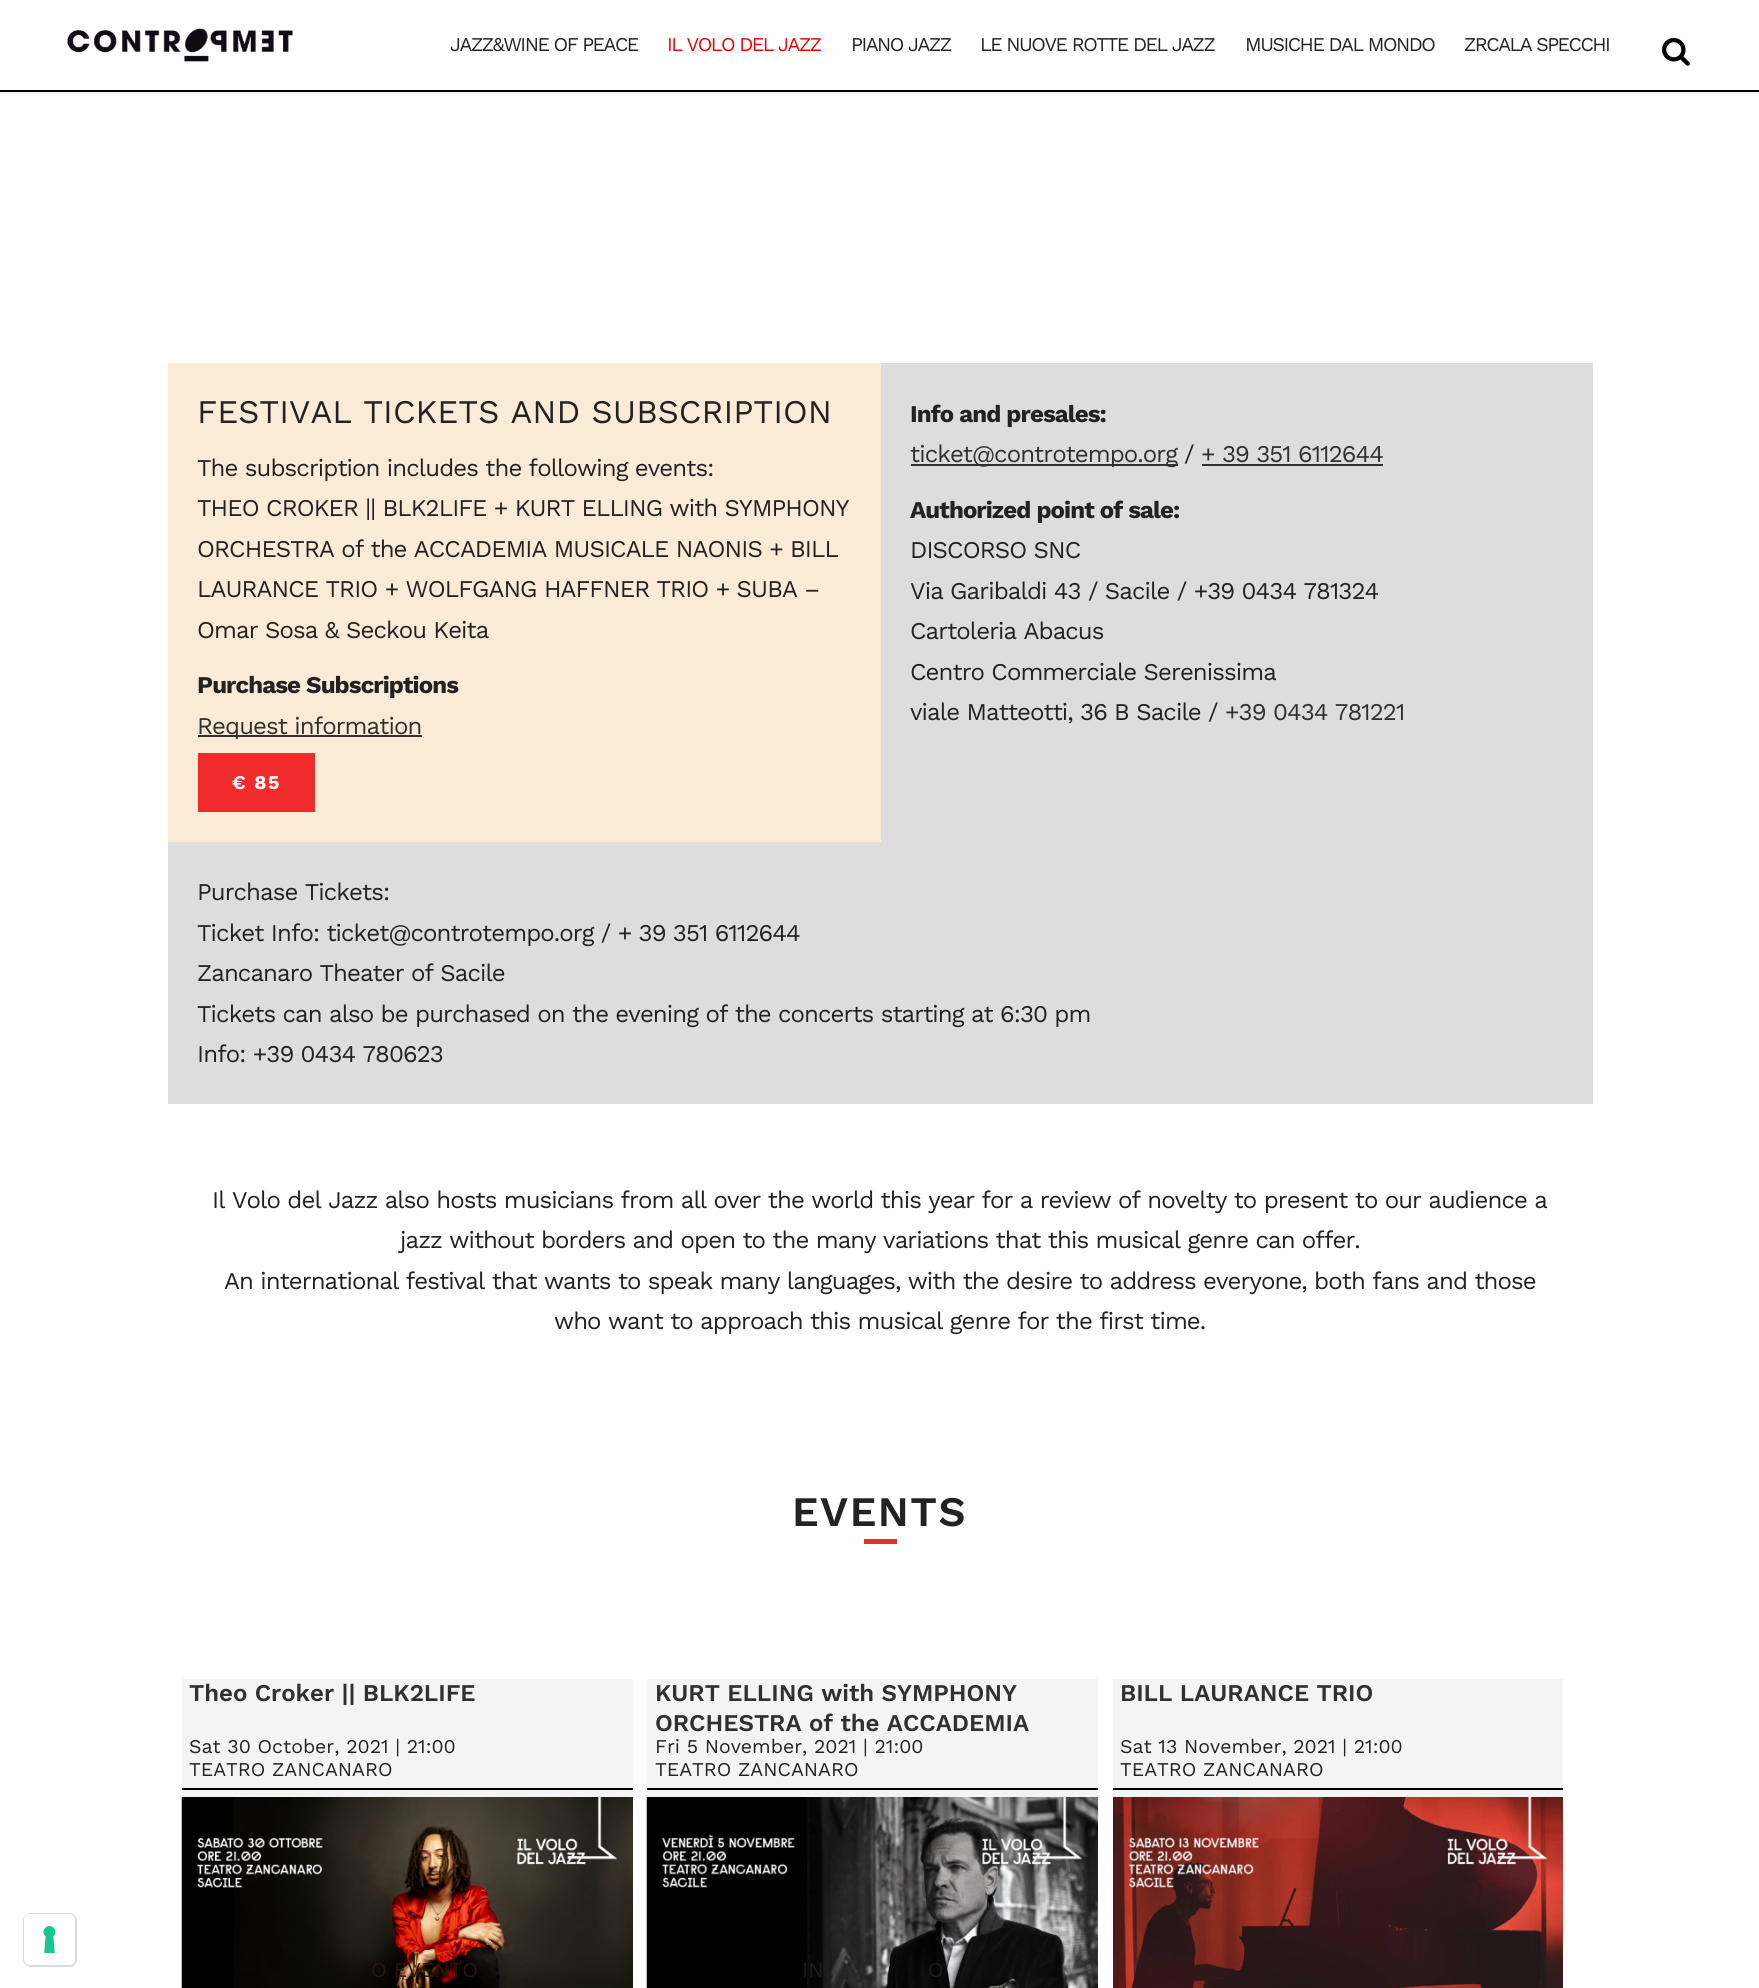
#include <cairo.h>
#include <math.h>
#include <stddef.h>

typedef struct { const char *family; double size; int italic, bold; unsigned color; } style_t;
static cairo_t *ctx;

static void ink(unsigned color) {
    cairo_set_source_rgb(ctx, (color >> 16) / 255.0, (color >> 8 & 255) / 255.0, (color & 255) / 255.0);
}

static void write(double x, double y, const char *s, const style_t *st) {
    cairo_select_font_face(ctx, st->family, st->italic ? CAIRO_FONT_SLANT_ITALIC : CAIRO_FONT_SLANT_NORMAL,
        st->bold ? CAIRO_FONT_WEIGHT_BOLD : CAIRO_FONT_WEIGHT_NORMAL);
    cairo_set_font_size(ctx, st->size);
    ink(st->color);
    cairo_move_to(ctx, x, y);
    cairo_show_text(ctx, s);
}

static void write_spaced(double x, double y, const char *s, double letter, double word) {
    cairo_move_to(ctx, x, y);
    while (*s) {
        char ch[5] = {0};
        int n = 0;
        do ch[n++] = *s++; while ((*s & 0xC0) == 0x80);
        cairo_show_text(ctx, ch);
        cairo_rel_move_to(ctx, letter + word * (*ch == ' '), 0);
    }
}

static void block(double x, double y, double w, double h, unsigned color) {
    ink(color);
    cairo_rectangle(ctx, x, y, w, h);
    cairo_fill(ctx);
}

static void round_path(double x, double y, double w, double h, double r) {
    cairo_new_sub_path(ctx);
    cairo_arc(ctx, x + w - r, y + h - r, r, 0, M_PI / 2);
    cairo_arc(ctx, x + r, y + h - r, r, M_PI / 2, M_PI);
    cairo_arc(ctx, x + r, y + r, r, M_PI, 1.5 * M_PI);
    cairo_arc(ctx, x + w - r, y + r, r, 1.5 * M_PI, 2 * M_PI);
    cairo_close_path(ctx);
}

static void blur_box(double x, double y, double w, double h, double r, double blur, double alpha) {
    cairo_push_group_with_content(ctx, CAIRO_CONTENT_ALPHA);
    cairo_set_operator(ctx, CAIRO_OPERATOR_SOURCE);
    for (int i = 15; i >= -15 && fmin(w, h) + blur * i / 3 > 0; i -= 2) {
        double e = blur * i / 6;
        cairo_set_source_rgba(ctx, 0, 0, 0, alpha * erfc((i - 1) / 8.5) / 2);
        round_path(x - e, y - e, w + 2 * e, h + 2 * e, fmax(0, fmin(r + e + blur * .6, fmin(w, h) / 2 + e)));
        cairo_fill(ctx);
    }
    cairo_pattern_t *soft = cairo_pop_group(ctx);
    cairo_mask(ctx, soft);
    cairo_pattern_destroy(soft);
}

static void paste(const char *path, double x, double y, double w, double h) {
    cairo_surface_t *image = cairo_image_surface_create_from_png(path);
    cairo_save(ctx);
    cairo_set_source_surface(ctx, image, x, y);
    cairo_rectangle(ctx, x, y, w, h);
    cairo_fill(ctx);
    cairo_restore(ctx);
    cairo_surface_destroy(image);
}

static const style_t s1 = {"Work Sans", 33, 0, 0, 0x222222};
static const style_t s2 = {"Work Sans SemiBold", 24, 0, 0, 0x303030};
static const style_t s3 = {"Work Sans", 19.5, 0, 0, 0x222222};
static const style_t s4 = {"Work Sans", 21, 0, 0, 0x27170f};
static const style_t s5 = {"Work Sans", 21, 0, 0, 0x1c1c1c};

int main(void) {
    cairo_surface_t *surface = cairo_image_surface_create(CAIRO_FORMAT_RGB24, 1759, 1988);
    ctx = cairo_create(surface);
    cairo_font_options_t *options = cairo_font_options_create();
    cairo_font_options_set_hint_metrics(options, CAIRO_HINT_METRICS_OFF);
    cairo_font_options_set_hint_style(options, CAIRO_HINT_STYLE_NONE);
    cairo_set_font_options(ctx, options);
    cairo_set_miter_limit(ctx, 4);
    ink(0xffffff);
    cairo_paint(ctx);
    round_path(24, 1914, 52, 52, 7);
    ink(0xd9d9d9);
    cairo_stroke(ctx);
    ink(0xffffff);
    round_path(24, 1914, 51, 51, 6);
    cairo_fill(ctx);
    paste("pic1.png", 43, 1926, 13, 27);
    ink(0x000000);
    blur_box(0, 2, 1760, 91, 0, 2, 0.11);
    block(0, 0, 1759, 90, 0xffffff);
    block(0, 90, 1759, 2, 0x000000);
    paste("pic2.png", 67, 28, 226, 34);
    cairo_select_font_face(ctx, "Work Sans", CAIRO_FONT_SLANT_NORMAL, CAIRO_FONT_WEIGHT_NORMAL);
    cairo_set_font_size(ctx, 19.5);
    ink(0x222222);
    write_spaced(450, 51, "JAZZ&WINE OF PEACE", -1.5, 0);
    ink(0xf20000);
    write_spaced(667, 51, "IL VOLO DEL JAZZ", -1.5, 0);
    ink(0x222222);
    write_spaced(851, 51, "PIANO JAZZ", -1.5, 0);
    write_spaced(980, 51, "LE NUOVE ROTTE DEL JAZZ", -1.5, 0);
    write_spaced(1245, 51, "MUSICHE DAL MONDO", -1.5, 0);
    write_spaced(1464, 51, "ZRCALA SPECCHI", -1.5, 0);
    paste("pic3.png", 1662, 37, 28, 29);
    block(168, 363, 713, 479, 0xfaebd7);
    write(197, 423, "FESTIVAL TICKETS AND SUBSCRIPTION", &s1);
    cairo_set_font_size(ctx, 24);
    write_spaced(197, 476, "The subscription includes the following events:", -0.9, 0);
    write_spaced(197, 516, "THEO CROKER || BLK2LIFE + KURT ELLING with SYMPHONY", -0.9, 0);
    write_spaced(197, 557, "ORCHESTRA of the ACCADEMIA MUSICALE NAONIS + BILL", -0.9, 0);
    write_spaced(197, 597, "LAURANCE TRIO + WOLFGANG HAFFNER TRIO + SUBA –", -0.9, 0);
    write_spaced(197, 638, "Omar Sosa & Seckou Keita", -0.9, 0);
    cairo_select_font_face(ctx, "Work Sans", CAIRO_FONT_SLANT_NORMAL, CAIRO_FONT_WEIGHT_BOLD);
    write_spaced(197, 693, "Purchase Subscriptions", -0.9, 0);
    block(198, 735, 224, 2, 0x303030);
    cairo_select_font_face(ctx, "Work Sans", CAIRO_FONT_SLANT_NORMAL, CAIRO_FONT_WEIGHT_NORMAL);
    write_spaced(197, 734, "Request information", -0.9, 0);
    block(198, 753, 117, 59, 0xf12b2b);
    cairo_select_font_face(ctx, "Work Sans", CAIRO_FONT_SLANT_NORMAL, CAIRO_FONT_WEIGHT_BOLD);
    cairo_set_font_size(ctx, 19.5);
    ink(0xffffff);
    write_spaced(232, 789, "€ 85", 1.5, 0);
    block(881, 363, 712, 479, 0xdddddd);
    cairo_set_font_size(ctx, 24);
    ink(0x222222);
    write_spaced(910, 422, "Info and presales:", -0.9, 0);
    block(911, 464, 267, 2, 0x303030);
    cairo_select_font_face(ctx, "Work Sans", CAIRO_FONT_SLANT_NORMAL, CAIRO_FONT_WEIGHT_NORMAL);
    write_spaced(910, 462, "ticket@controtempo.org", -0.9, 0);
    ink(0x222222);
    write_spaced(1184, 462, "/", -0.9, 0);
    ink(0x303030);
    write_spaced(1201, 462, "+ 39 351 6112644", -0.9, 0);
    block(1202, 464, 181, 2, 0x303030);
    cairo_select_font_face(ctx, "Work Sans", CAIRO_FONT_SLANT_NORMAL, CAIRO_FONT_WEIGHT_BOLD);
    ink(0x222222);
    write_spaced(910, 518, "Authorized point of sale:", -0.9, 0);
    cairo_select_font_face(ctx, "Work Sans", CAIRO_FONT_SLANT_NORMAL, CAIRO_FONT_WEIGHT_NORMAL);
    write_spaced(910, 558, "DISCORSO SNC", -0.9, 0);
    write_spaced(910, 599, "Via Garibaldi 43 / Sacile / +39 0434 781324", -0.9, 0);
    write_spaced(910, 639, "Cartoleria Abacus", -0.9, 0);
    write_spaced(910, 680, "Centro Commerciale Serenissima", -0.9, 0);
    write_spaced(910, 720, "viale Matteotti, 36 B Sacile /", -0.9, 0);
    ink(0x303030);
    write_spaced(1225, 720, "+39 0434 781221", -0.9, 0);
    block(168, 842, 1425, 262, 0xdddddd);
    ink(0x222222);
    write_spaced(197, 900, "Purchase Tickets:", -0.9, 0);
    write_spaced(197, 941, "Ticket Info: ticket@controtempo.org / + 39 351 6112644", -0.9, 0);
    write_spaced(197, 981, "Zancanaro Theater of Sacile", -0.9, 0);
    write_spaced(197, 1022, "Tickets can also be purchased on the evening of the concerts starting at 6:30 pm", -0.9, 0);
    write_spaced(197, 1062, "Info: +39 0434 780623", -0.9, 0);
    write_spaced(212, 1208, "Il Volo del Jazz also hosts musicians from all over the world this year for a review of novelty to present to our audience a", -0.9, 0);
    write_spaced(400, 1248, "jazz without borders and open to the many variations that this musical genre can offer.", -0.9, 0);
    write_spaced(224, 1289, "An international festival that wants to speak many languages, with the desire to address everyone, both fans and those", -0.9, 0);
    write_spaced(554, 1329, "who want to approach this musical genre for the first time.", -0.9, 0);
    cairo_select_font_face(ctx, "Work Sans SemiBold", CAIRO_FONT_SLANT_NORMAL, CAIRO_FONT_WEIGHT_NORMAL);
    cairo_set_font_size(ctx, 42);
    write_spaced(792, 1526, "EVENTS", 1.5, 0);
    block(864, 1539, 33, 5, 0xdd3333);
    block(182, 1679, 451, 118, 0xf4f4f4);
    write(189, 1701, "Theo Croker || BLK2LIFE", &s2);
    write(189, 1753, "Sat 30 October, 2021 | 21:00", &s3);
    write(189, 1776, "TEATRO ZANCANARO", &s3);
    block(182, 1788, 451, 2, 0x000000);
    paste("pic4.png", 181, 1797, 452, 191);
    write(371, 1977, "O EVENTO", &s4);
    block(647, 1679, 451, 118, 0xf4f4f4);
    write(655, 1701, "KURT ELLING with SYMPHONY", &s2);
    write(655, 1731, "ORCHESTRA of the ACCADEMIA", &s2);
    write(655, 1753, "Fri 5 November, 2021 | 21:00", &s3);
    write(655, 1776, "TEATRO ZANCANARO", &s3);
    block(647, 1788, 451, 2, 0x000000);
    paste("pic5.png", 646, 1797, 452, 191);
    write(802, 1977, "IN", &s5);
    write(928, 1977, "O", &s5);
    block(1113, 1679, 450, 118, 0xf4f4f4);
    write(1120, 1701, "BILL LAURANCE TRIO", &s2);
    write(1120, 1753, "Sat 13 November, 2021 | 21:00", &s3);
    write(1120, 1776, "TEATRO ZANCANARO", &s3);
    block(1113, 1788, 450, 2, 0x000000);
    paste("pic6.png", 1113, 1797, 450, 191);
    cairo_surface_write_to_png(surface, "screenshot.png");
    cairo_font_options_destroy(options);
    cairo_destroy(ctx);
    cairo_surface_destroy(surface);
    return 0;
}
